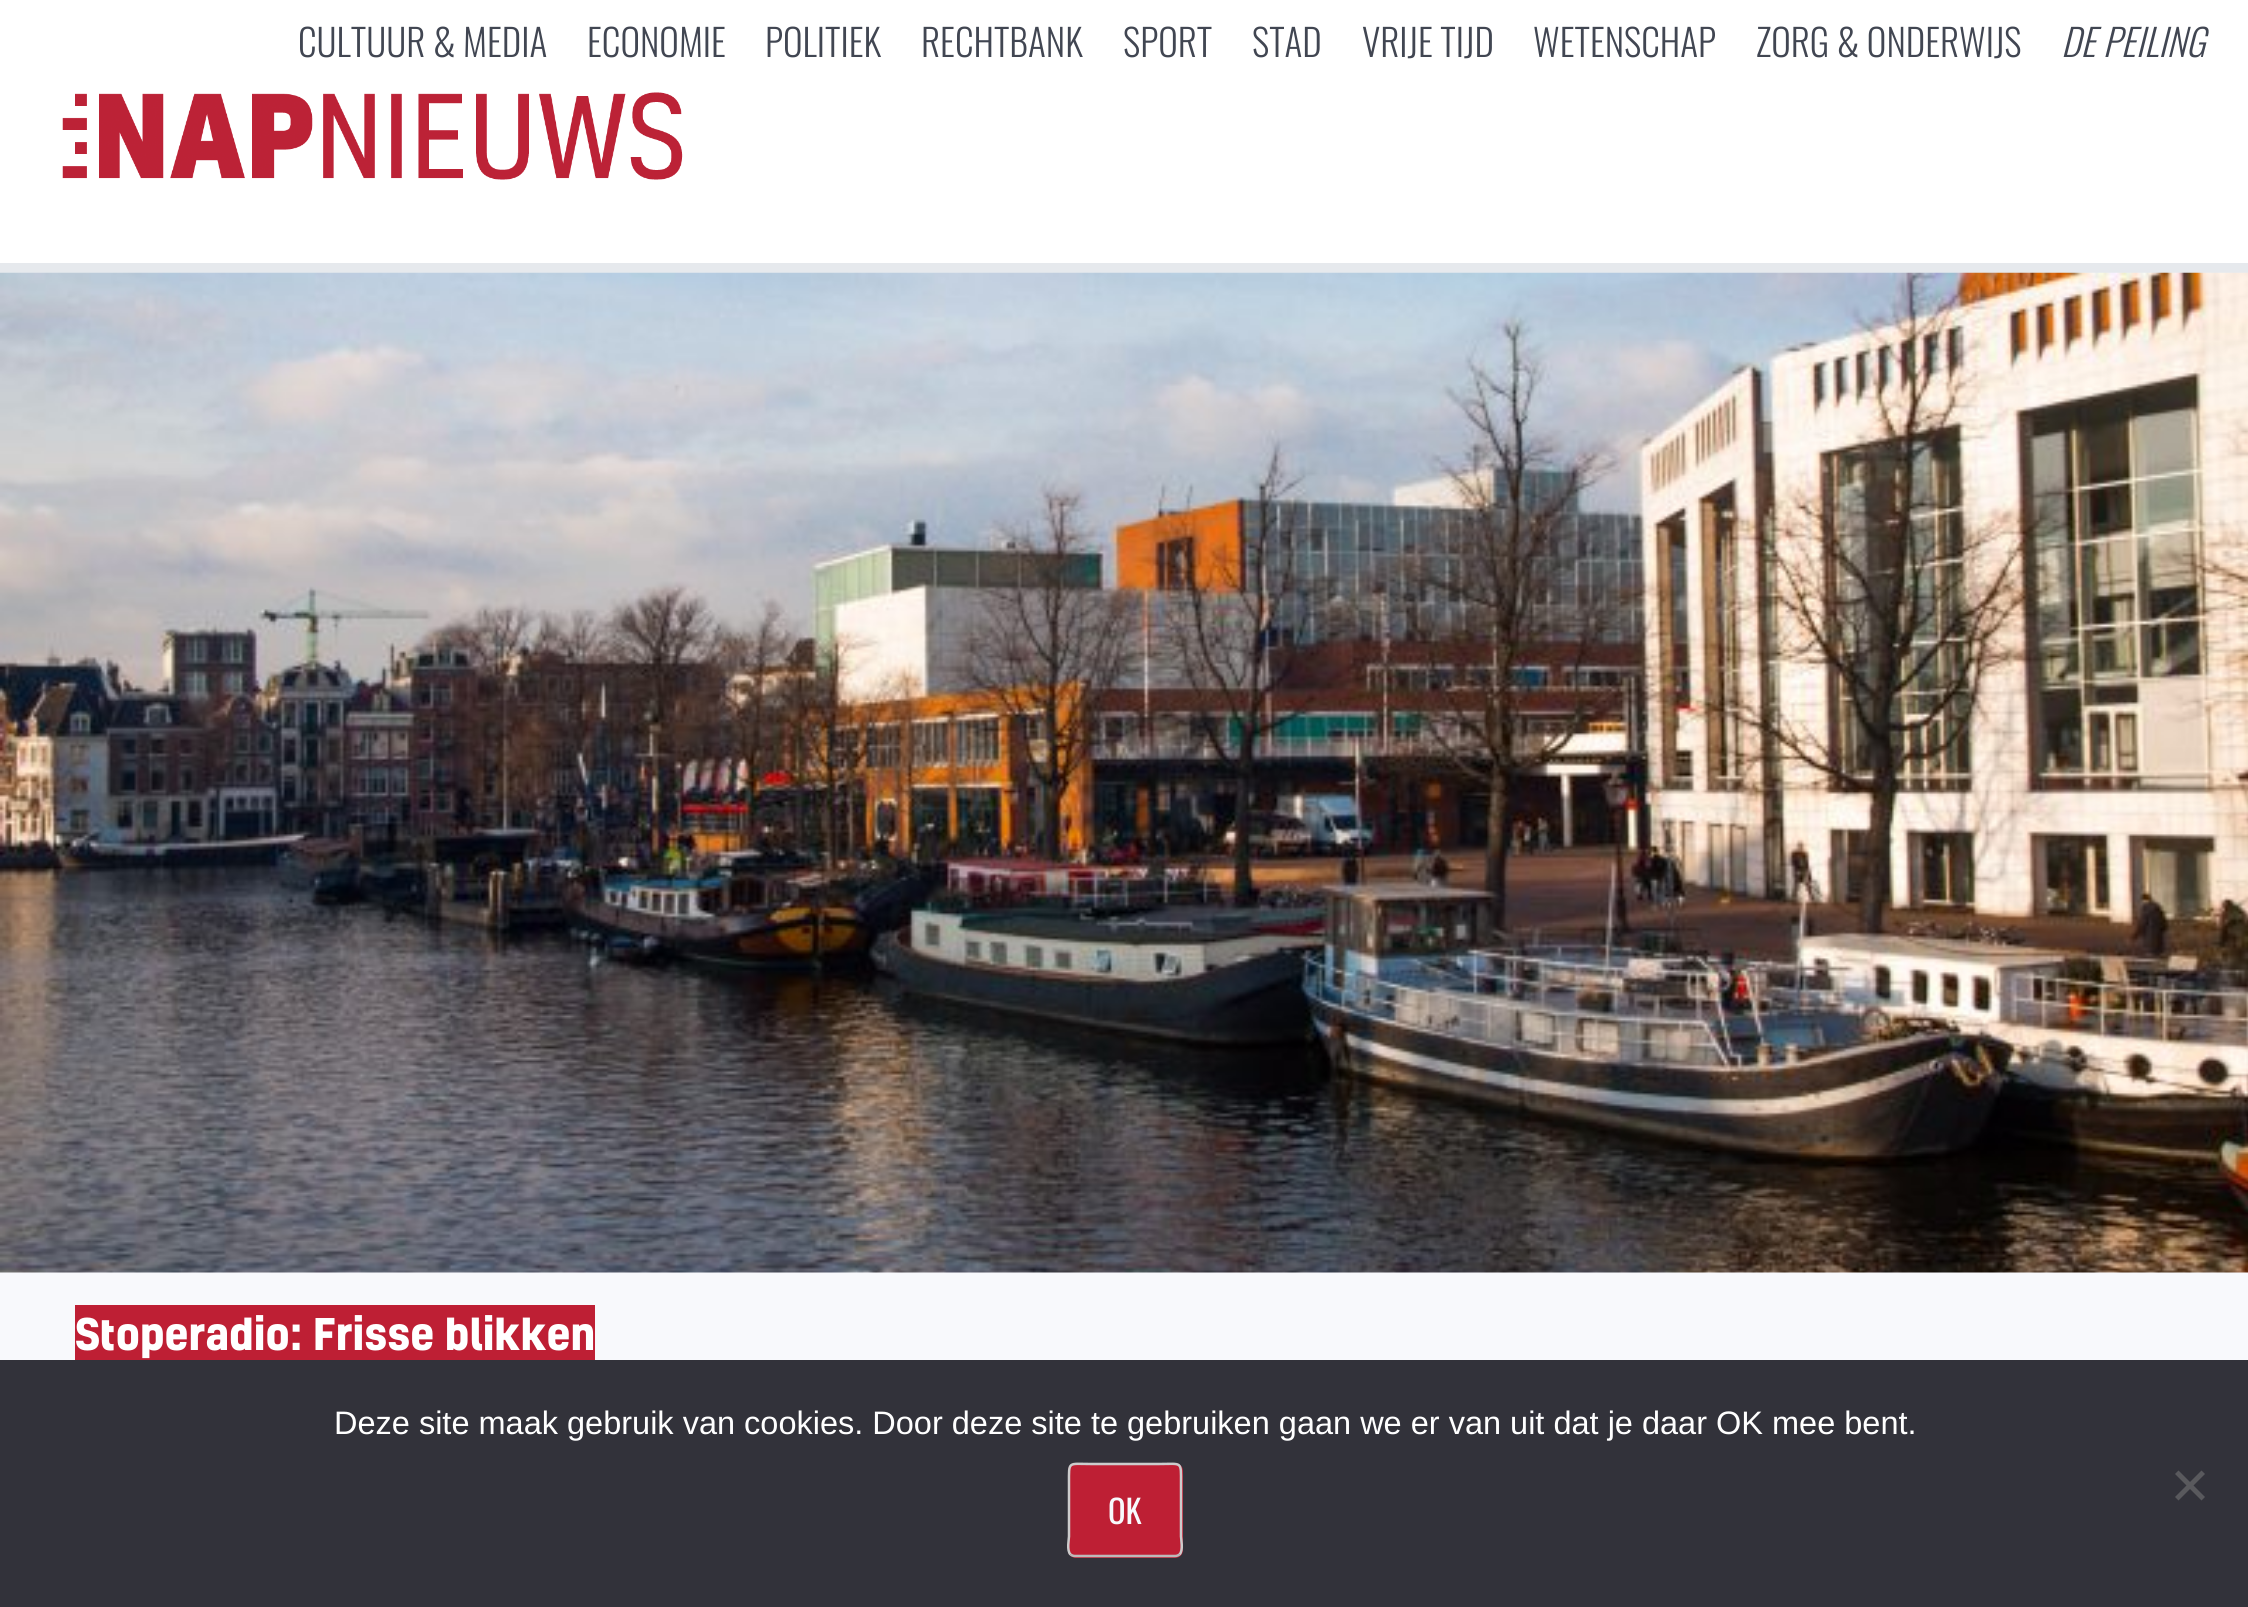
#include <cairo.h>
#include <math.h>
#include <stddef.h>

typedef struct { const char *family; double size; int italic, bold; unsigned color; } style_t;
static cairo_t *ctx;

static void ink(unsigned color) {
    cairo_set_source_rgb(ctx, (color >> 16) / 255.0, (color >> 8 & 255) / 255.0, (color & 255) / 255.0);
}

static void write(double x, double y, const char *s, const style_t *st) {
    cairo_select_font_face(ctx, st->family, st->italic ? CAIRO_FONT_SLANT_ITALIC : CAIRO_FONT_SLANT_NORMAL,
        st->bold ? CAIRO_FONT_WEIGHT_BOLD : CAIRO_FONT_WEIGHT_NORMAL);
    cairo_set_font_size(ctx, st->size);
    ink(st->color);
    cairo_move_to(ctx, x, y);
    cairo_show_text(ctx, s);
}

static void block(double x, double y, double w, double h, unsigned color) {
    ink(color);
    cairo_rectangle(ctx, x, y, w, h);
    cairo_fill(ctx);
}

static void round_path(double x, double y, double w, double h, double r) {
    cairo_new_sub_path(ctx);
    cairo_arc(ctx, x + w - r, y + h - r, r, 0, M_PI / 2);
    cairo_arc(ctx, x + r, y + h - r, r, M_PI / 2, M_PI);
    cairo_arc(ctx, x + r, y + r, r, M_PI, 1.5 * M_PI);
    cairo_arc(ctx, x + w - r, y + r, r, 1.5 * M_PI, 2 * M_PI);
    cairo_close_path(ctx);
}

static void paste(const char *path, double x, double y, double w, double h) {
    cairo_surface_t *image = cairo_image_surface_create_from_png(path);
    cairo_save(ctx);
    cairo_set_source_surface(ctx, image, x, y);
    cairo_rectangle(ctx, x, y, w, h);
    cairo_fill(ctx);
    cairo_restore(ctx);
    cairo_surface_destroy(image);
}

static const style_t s1 = {"Oswald Light", 37.25, 0, 0, 0x414652};
static const style_t s2 = {"Oswald Light", 37.25, 1, 0, 0x414652};
static const style_t s3 = {"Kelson", 42, 0, 1, 0xffffff};
static const style_t s4 = {"Liberation Sans", 32.5, 0, 0, 0xffffff};
static const style_t s5 = {"Oswald", 32.5, 0, 0, 0xf8f9fc};

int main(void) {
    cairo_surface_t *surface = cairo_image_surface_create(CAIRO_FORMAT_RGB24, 2248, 1607);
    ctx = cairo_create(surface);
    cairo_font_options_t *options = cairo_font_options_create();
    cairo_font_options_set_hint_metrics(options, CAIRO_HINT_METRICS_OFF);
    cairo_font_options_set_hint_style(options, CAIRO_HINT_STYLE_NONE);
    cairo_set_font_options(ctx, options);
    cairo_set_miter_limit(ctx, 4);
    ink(0xf8f9fc);
    cairo_paint(ctx);
    block(0, 0, 2248, 263, 0xffffff);
    block(0, 263, 2248, 10, 0xe6e9ed);
    write(298, 57, "CULTUUR & MEDIA", &s1);
    write(587, 57, "ECONOMIE", &s1);
    write(765, 57, "POLITIEK", &s1);
    write(921, 57, "RECHTBANK", &s1);
    write(1123, 57, "SPORT", &s1);
    write(1252, 57, "STAD", &s1);
    write(1362, 57, "VRIJE TIJD", &s1);
    write(1533, 57, "WETENSCHAP", &s1);
    write(1756, 57, "ZORG & ONDERWIJS", &s1);
    write(2061, 57, "DE PEILING", &s2);
    paste("pic1.png", 62, 92, 621, 88);
    paste("pic2.png", 0, 272, 2248, 1001);
    block(75, 1305, 520, 55, 0xbe1f34);
    write(75, 1350, "Stoperadio: Frisse blikken", &s3);
    block(0, 1360, 2248, 247, 0x32323a);
    write(334, 1434, "Deze site maak gebruik van cookies. Door deze site te gebruiken gaan we er van uit dat je daar OK mee bent.", &s4);
    ink(0x59595d);
    cairo_new_path(ctx);
    cairo_move_to(ctx, 2201.5, 1470.5);
    cairo_line_to(ctx, 2205, 1474);
    cairo_line_to(ctx, 2178.5, 1500.5);
    cairo_line_to(ctx, 2175, 1497);
    cairo_close_path(ctx);
    cairo_fill(ctx);
    cairo_new_path(ctx);
    cairo_move_to(ctx, 2175, 1474);
    cairo_line_to(ctx, 2178.5, 1470.5);
    cairo_line_to(ctx, 2205, 1497);
    cairo_line_to(ctx, 2201.5, 1500.5);
    cairo_close_path(ctx);
    cairo_fill(ctx);
    ink(0xbe1f34);
    round_path(1068, 1463, 115, 95, 8);
    cairo_fill(ctx);
    cairo_new_path(ctx);
    cairo_move_to(ctx, 1179.5, 1554.5);
    cairo_curve_to(ctx, 1178, 1555.5, 1176.5, 1556, 1175, 1556);
    cairo_line_to(ctx, 1075, 1556);
    cairo_curve_to(ctx, 1073.5, 1556, 1072, 1555.5, 1070.5, 1554.5);
    ink(0xbbbbbb);
    cairo_set_line_width(ctx, 2.5);
    cairo_stroke(ctx);
    cairo_new_path(ctx);
    cairo_move_to(ctx, 1070.5, 1554.5);
    cairo_curve_to(ctx, 1066.5, 1550.5, 1069, 1539, 1069, 1536.5);
    cairo_line_to(ctx, 1069, 1483.5);
    cairo_curve_to(ctx, 1069, 1460.5, 1067.5, 1464, 1091.5, 1464);
    cairo_line_to(ctx, 1158.5, 1464);
    cairo_curve_to(ctx, 1182.5, 1464, 1181, 1460.5, 1181, 1483.5);
    cairo_line_to(ctx, 1181, 1536.5);
    cairo_curve_to(ctx, 1181, 1539, 1183.5, 1550.5, 1179.5, 1554.5);
    ink(0xcccccc);
    cairo_stroke(ctx);
    write(1108, 1524, "OK", &s5);
    cairo_surface_write_to_png(surface, "screenshot.png");
    cairo_font_options_destroy(options);
    cairo_destroy(ctx);
    cairo_surface_destroy(surface);
    return 0;
}
